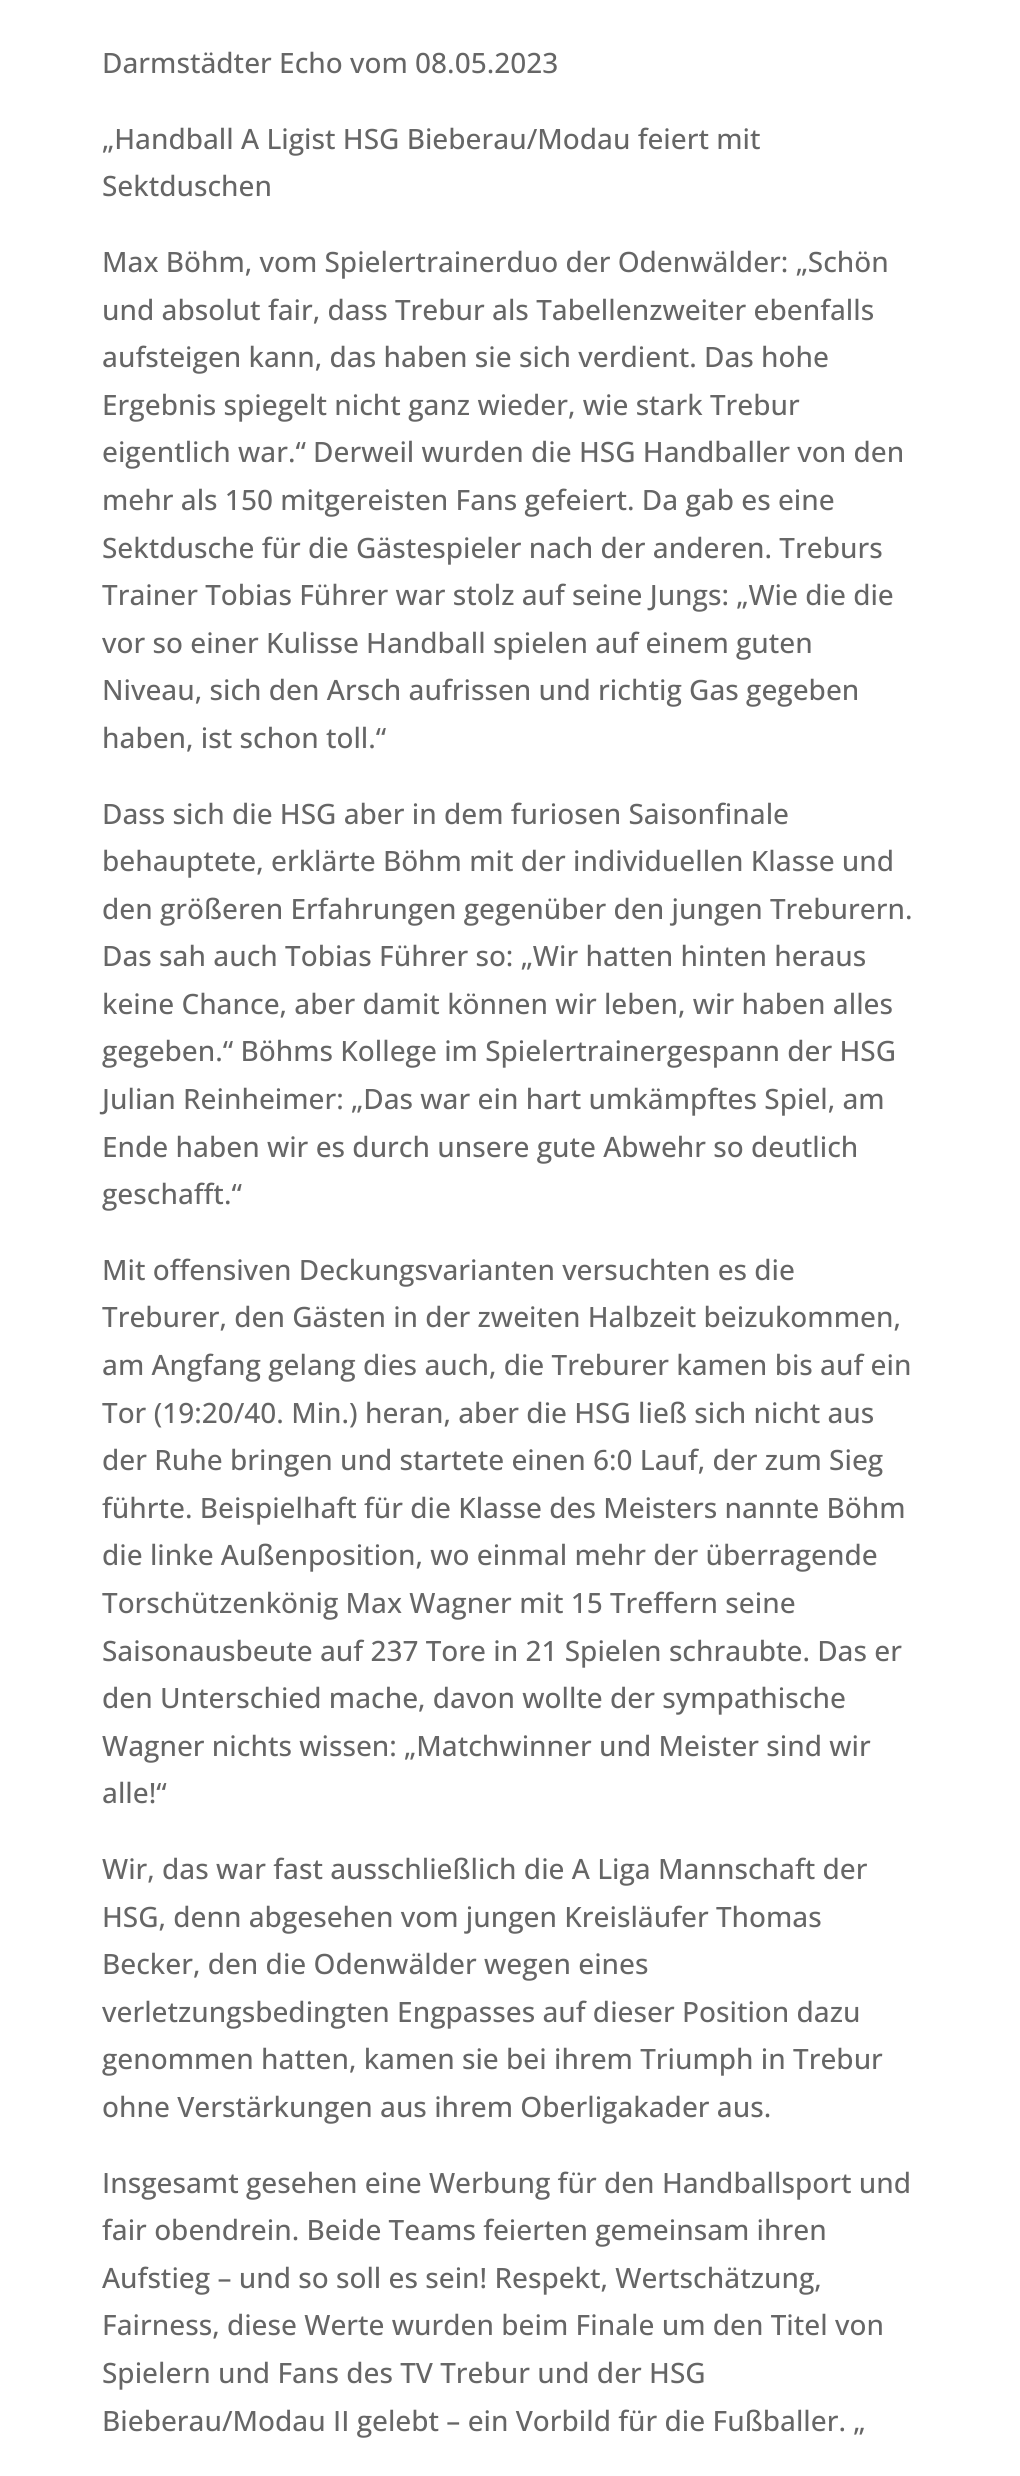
#include <cairo.h>
#include <math.h>
#include <stddef.h>

typedef struct { const char *family; double size; int italic, bold; unsigned color; } style_t;
static cairo_t *ctx;

static void ink(unsigned color) {
    cairo_set_source_rgb(ctx, (color >> 16) / 255.0, (color >> 8 & 255) / 255.0, (color & 255) / 255.0);
}

static void write(double x, double y, const char *s, const style_t *st) {
    cairo_select_font_face(ctx, st->family, st->italic ? CAIRO_FONT_SLANT_ITALIC : CAIRO_FONT_SLANT_NORMAL,
        st->bold ? CAIRO_FONT_WEIGHT_BOLD : CAIRO_FONT_WEIGHT_NORMAL);
    cairo_set_font_size(ctx, st->size);
    ink(st->color);
    cairo_move_to(ctx, x, y);
    cairo_show_text(ctx, s);
}

static const style_t s1 = {"Open Sans Medium", 28, 0, 0, 0x666666};

int main(void) {
    cairo_surface_t *surface = cairo_image_surface_create(CAIRO_FORMAT_RGB24, 1020, 2476);
    ctx = cairo_create(surface);
    cairo_font_options_t *options = cairo_font_options_create();
    cairo_font_options_set_hint_metrics(options, CAIRO_HINT_METRICS_OFF);
    cairo_font_options_set_hint_style(options, CAIRO_HINT_STYLE_NONE);
    cairo_set_font_options(ctx, options);
    cairo_set_miter_limit(ctx, 4);
    ink(0xffffff);
    cairo_paint(ctx);
    write(102, 73, "Darmstädter Echo vom 08.05.2023", &s1);
    write(102, 149, "„Handball A Ligist HSG Bieberau/Modau feiert mit", &s1);
    write(102, 196, "Sektduschen", &s1);
    write(102, 272, "Max Böhm, vom Spielertrainerduo der Odenwälder: „Schön", &s1);
    write(102, 320, "und absolut fair, dass Trebur als Tabellenzweiter ebenfalls", &s1);
    write(102, 367, "aufsteigen kann, das haben sie sich verdient. Das hohe", &s1);
    write(102, 415, "Ergebnis spiegelt nicht ganz wieder, wie stark Trebur", &s1);
    write(102, 462, "eigentlich war.“ Derweil wurden die HSG Handballer von den", &s1);
    write(102, 510, "mehr als 150 mitgereisten Fans gefeiert. Da gab es eine", &s1);
    write(102, 558, "Sektdusche für die Gästespieler nach der anderen. Treburs", &s1);
    write(102, 605, "Trainer Tobias Führer war stolz auf seine Jungs: „Wie die die", &s1);
    write(102, 653, "vor so einer Kulisse Handball spielen auf einem guten", &s1);
    write(102, 700, "Niveau, sich den Arsch aufrissen und richtig Gas gegeben", &s1);
    write(102, 748, "haben, ist schon toll.“", &s1);
    write(102, 824, "Dass sich die HSG aber in dem furiosen Saisonfinale", &s1);
    write(102, 871, "behauptete, erklärte Böhm mit der individuellen Klasse und", &s1);
    write(102, 919, "den größeren Erfahrungen gegenüber den jungen Treburern.", &s1);
    write(102, 966, "Das sah auch Tobias Führer so: „Wir hatten hinten heraus", &s1);
    write(102, 1014, "keine Chance, aber damit können wir leben, wir haben alles", &s1);
    write(102, 1061, "gegeben.“ Böhms Kollege im Spielertrainergespann der HSG", &s1);
    write(102, 1109, "Julian Reinheimer: „Das war ein hart umkämpftes Spiel, am", &s1);
    write(102, 1157, "Ende haben wir es durch unsere gute Abwehr so deutlich", &s1);
    write(102, 1204, "geschafft.“", &s1);
    write(102, 1280, "Mit offensiven Deckungsvarianten versuchten es die", &s1);
    write(102, 1327, "Treburer, den Gästen in der zweiten Halbzeit beizukommen,", &s1);
    write(102, 1375, "am Angfang gelang dies auch, die Treburer kamen bis auf ein", &s1);
    write(102, 1423, "Tor (19:20/40. Min.) heran, aber die HSG ließ sich nicht aus", &s1);
    write(102, 1470, "der Ruhe bringen und startete einen 6:0 Lauf, der zum Sieg", &s1);
    write(102, 1518, "führte. Beispielhaft für die Klasse des Meisters nannte Böhm", &s1);
    write(102, 1565, "die linke Außenposition, wo einmal mehr der überragende", &s1);
    write(102, 1613, "Torschützenkönig Max Wagner mit 15 Treffern seine", &s1);
    write(102, 1661, "Saisonausbeute auf 237 Tore in 21 Spielen schraubte. Das er", &s1);
    write(102, 1708, "den Unterschied mache, davon wollte der sympathische", &s1);
    write(102, 1756, "Wagner nichts wissen: „Matchwinner und Meister sind wir", &s1);
    write(102, 1803, "alle!“", &s1);
    write(102, 1879, "Wir, das war fast ausschließlich die A Liga Mannschaft der", &s1);
    write(102, 1927, "HSG, denn abgesehen vom jungen Kreisläufer Thomas", &s1);
    write(102, 1974, "Becker, den die Odenwälder wegen eines", &s1);
    write(102, 2022, "verletzungsbedingten Engpasses auf dieser Position dazu", &s1);
    write(102, 2069, "genommen hatten, kamen sie bei ihrem Triumph in Trebur", &s1);
    write(102, 2117, "ohne Verstärkungen aus ihrem Oberligakader aus.", &s1);
    write(102, 2193, "Insgesamt gesehen eine Werbung für den Handballsport und", &s1);
    write(102, 2240, "fair obendrein. Beide Teams feierten gemeinsam ihren", &s1);
    write(102, 2288, "Aufstieg – und so soll es sein! Respekt, Wertschätzung,", &s1);
    write(102, 2335, "Fairness, diese Werte wurden beim Finale um den Titel von", &s1);
    write(102, 2383, "Spielern und Fans des TV Trebur und der HSG", &s1);
    write(102, 2431, "Bieberau/Modau II gelebt – ein Vorbild für die Fußballer. „", &s1);
    cairo_surface_write_to_png(surface, "screenshot.png");
    cairo_font_options_destroy(options);
    cairo_destroy(ctx);
    cairo_surface_destroy(surface);
    return 0;
}
